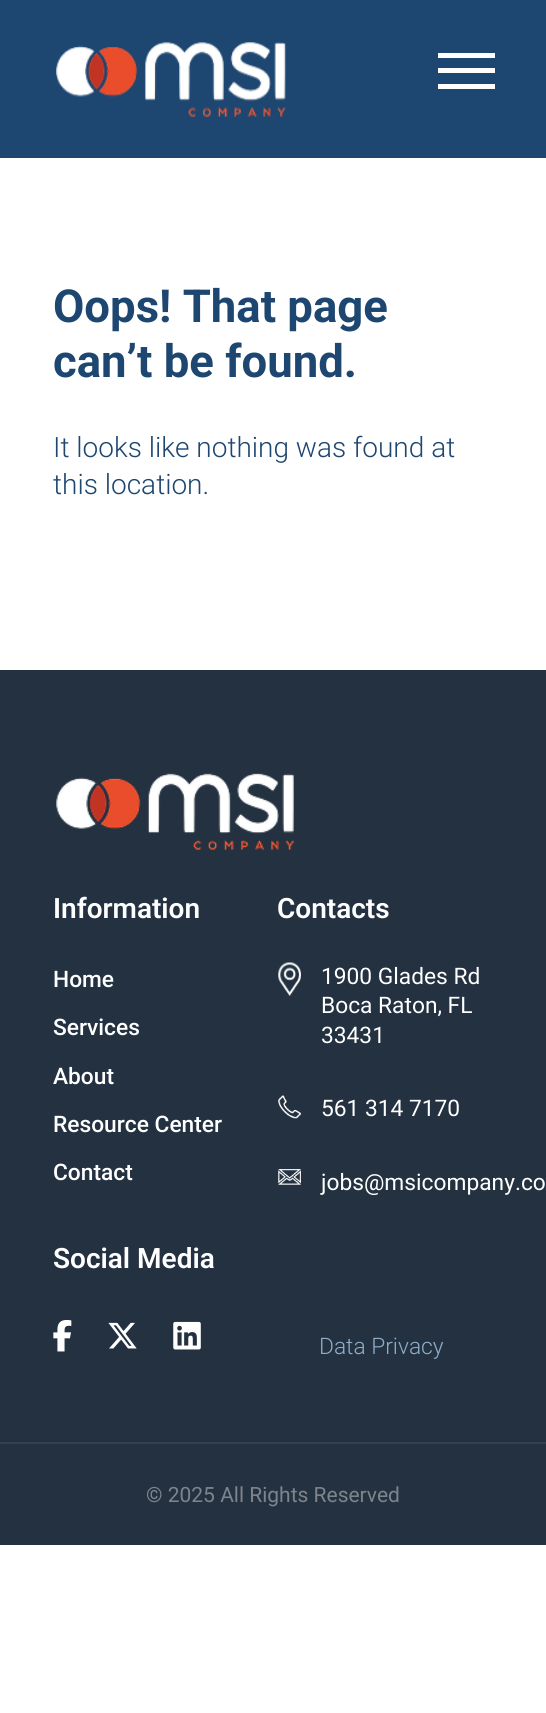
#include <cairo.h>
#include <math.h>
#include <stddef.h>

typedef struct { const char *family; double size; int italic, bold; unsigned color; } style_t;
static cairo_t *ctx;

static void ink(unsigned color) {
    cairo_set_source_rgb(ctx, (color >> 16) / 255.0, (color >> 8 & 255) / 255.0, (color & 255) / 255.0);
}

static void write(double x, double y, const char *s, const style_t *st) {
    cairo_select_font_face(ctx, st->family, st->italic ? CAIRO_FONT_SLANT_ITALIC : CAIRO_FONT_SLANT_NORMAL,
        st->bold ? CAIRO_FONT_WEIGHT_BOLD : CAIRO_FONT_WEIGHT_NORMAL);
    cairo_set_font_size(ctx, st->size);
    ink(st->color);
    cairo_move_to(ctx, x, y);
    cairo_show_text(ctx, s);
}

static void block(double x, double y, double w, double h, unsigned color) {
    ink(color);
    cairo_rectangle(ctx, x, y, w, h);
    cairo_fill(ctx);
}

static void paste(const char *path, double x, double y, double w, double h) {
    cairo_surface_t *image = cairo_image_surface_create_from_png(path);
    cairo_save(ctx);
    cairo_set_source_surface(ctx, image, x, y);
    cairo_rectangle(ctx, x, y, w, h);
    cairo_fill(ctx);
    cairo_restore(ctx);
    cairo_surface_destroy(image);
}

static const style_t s1 = {"Roboto", 45.5, 0, 1, 0x1d4671};
static const style_t s2 = {"Roboto Light", 28, 0, 0, 0x1d4671};
static const style_t s3 = {"Roboto SemiBold", 28, 0, 0, 0xffffff};
static const style_t s4 = {"Roboto Medium", 22.75, 0, 0, 0xffffff};
static const style_t s5 = {"Roboto", 22.75, 0, 0, 0xffffff};
static const style_t s6 = {"Roboto Light", 22.75, 0, 0, 0x8eadc8};
static const style_t s7 = {"Roboto", 21, 0, 0, 0x7d848b};

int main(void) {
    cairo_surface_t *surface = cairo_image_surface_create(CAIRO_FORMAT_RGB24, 546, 1713);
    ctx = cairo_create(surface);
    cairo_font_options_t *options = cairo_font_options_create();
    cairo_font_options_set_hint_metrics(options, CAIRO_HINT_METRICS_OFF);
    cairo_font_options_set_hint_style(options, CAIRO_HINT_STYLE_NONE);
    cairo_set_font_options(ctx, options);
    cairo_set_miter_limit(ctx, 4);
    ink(0xffffff);
    cairo_paint(ctx);
    block(0, 0, 546, 158, 0x1d4671);
    paste("pic1.png", 56, 42, 230, 76);
    block(438, 53, 57, 5, 0xffffff);
    block(438, 68, 57, 5, 0xffffff);
    block(438, 84, 57, 5, 0xffffff);
    write(53, 322, "Oops! That page", &s1);
    write(53, 377, "can’t be found.", &s1);
    write(53, 457, "It looks like nothing was found at", &s2);
    write(53, 494, "this location.", &s2);
    block(0, 670, 546, 875, 0x233141);
    paste("pic2.png", 56, 773, 238, 77);
    write(53, 918, "Information", &s3);
    write(53, 987, "Home", &s4);
    write(53, 1035, "Services", &s4);
    write(53, 1084, "About", &s4);
    write(53, 1132, "Resource Center", &s4);
    write(53, 1180, "Contact", &s4);
    write(277, 918, "Contacts", &s3);
    paste("pic3.png", 278, 962, 23, 34);
    write(321, 984, "1900 Glades Rd", &s5);
    write(321, 1013, "Boca Raton, FL", &s5);
    write(321, 1043, "33431", &s5);
    paste("pic4.png", 278, 1095, 23, 24);
    write(321, 1116, "561 314 7170", &s5);
    paste("pic5.png", 278, 1169, 23, 16);
    write(321, 1190, "jobs@msicompany.co", &s5);
    write(53, 1268, "Social Media", &s3);
    paste("pic6.png", 53, 1319, 19, 33);
    paste("pic7.png", 108, 1322, 29, 27);
    paste("pic8.png", 173, 1321, 28, 29);
    write(319, 1354, "Data Privacy", &s6);
    block(0, 1442, 546, 2, 0x34414f);
    write(146, 1502, "© 2025 All Rights Reserved", &s7);
    cairo_surface_write_to_png(surface, "screenshot.png");
    cairo_font_options_destroy(options);
    cairo_destroy(ctx);
    cairo_surface_destroy(surface);
    return 0;
}
